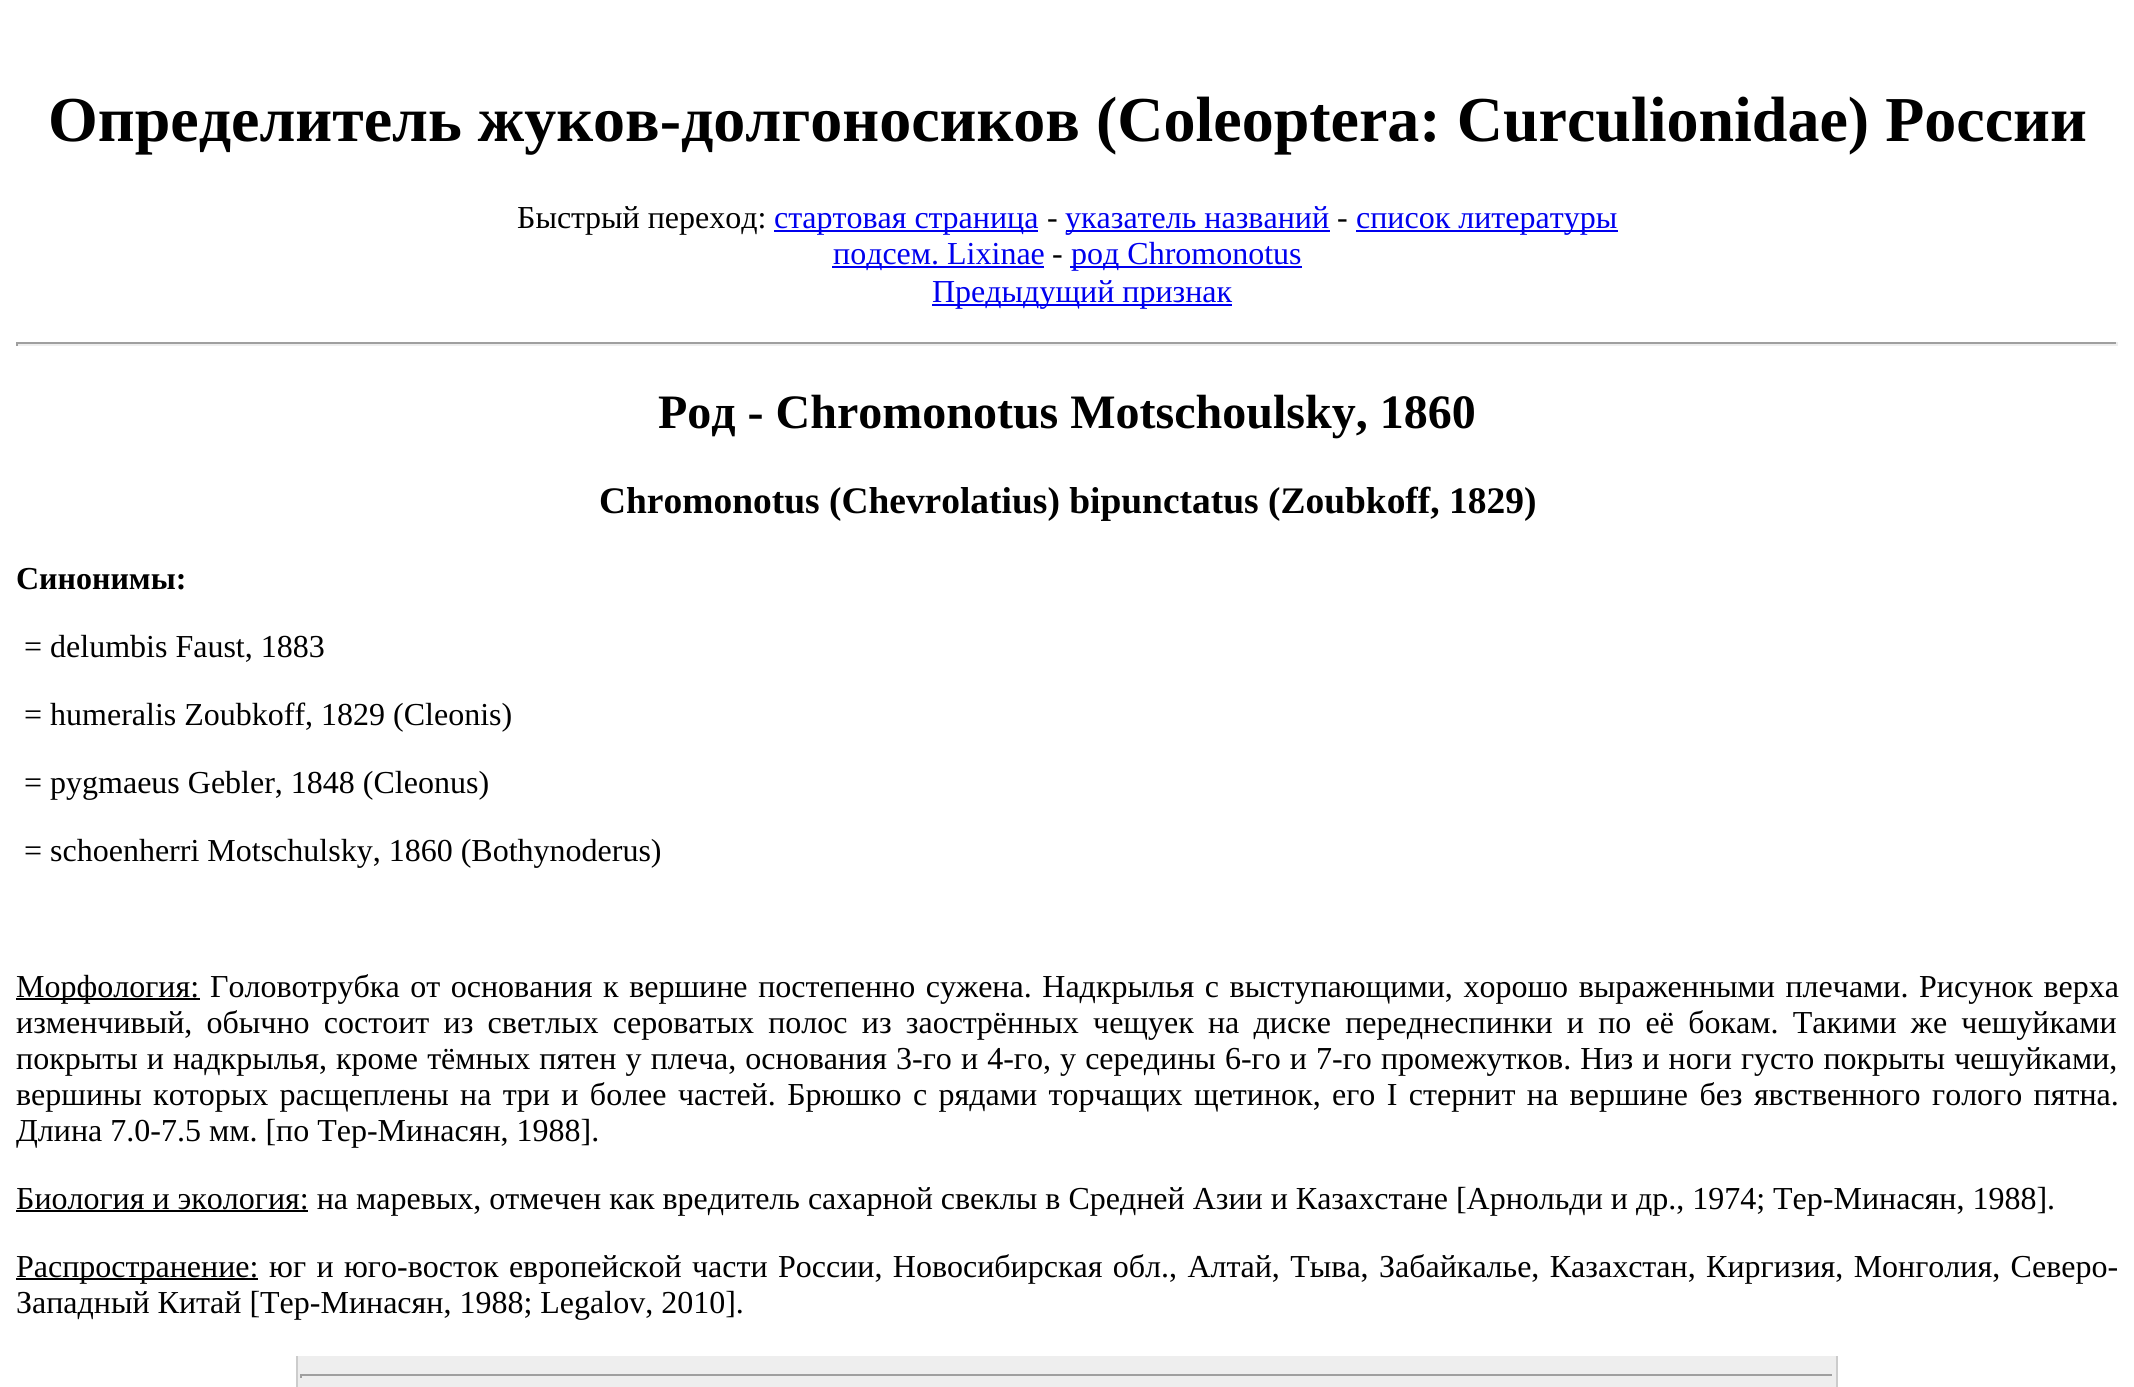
#include <cairo.h>
#include <math.h>
#include <stddef.h>

typedef struct { const char *family; double size; int italic, bold; unsigned color; } style_t;
static cairo_t *ctx;

static void ink(unsigned color) {
    cairo_set_source_rgb(ctx, (color >> 16) / 255.0, (color >> 8 & 255) / 255.0, (color & 255) / 255.0);
}

static void write(double x, double y, const char *s, const style_t *st) {
    cairo_select_font_face(ctx, st->family, st->italic ? CAIRO_FONT_SLANT_ITALIC : CAIRO_FONT_SLANT_NORMAL,
        st->bold ? CAIRO_FONT_WEIGHT_BOLD : CAIRO_FONT_WEIGHT_NORMAL);
    cairo_set_font_size(ctx, st->size);
    ink(st->color);
    cairo_move_to(ctx, x, y);
    cairo_show_text(ctx, s);
}

static void write_spaced(double x, double y, const char *s, double letter, double word) {
    cairo_move_to(ctx, x, y);
    while (*s) {
        char ch[5] = {0};
        int n = 0;
        do ch[n++] = *s++; while ((*s & 0xC0) == 0x80);
        cairo_show_text(ctx, ch);
        cairo_rel_move_to(ctx, letter + word * (*ch == ' '), 0);
    }
}

static void block(double x, double y, double w, double h, unsigned color) {
    ink(color);
    cairo_rectangle(ctx, x, y, w, h);
    cairo_fill(ctx);
}

static const style_t s1 = {"Liberation Serif", 64, 0, 1, 0x000000};
static const style_t s2 = {"Liberation Serif", 32, 0, 0, 0x000000};
static const style_t s3 = {"Liberation Serif", 32, 0, 0, 0x0000ee};
static const style_t s4 = {"Liberation Serif", 48, 0, 1, 0x000000};
static const style_t s5 = {"Liberation Serif", 37.45, 0, 1, 0x000000};
static const style_t s6 = {"Liberation Serif", 32, 0, 1, 0x000000};

int main(void) {
    cairo_surface_t *surface = cairo_image_surface_create(CAIRO_FORMAT_RGB24, 2134, 1387);
    ctx = cairo_create(surface);
    cairo_font_options_t *options = cairo_font_options_create();
    cairo_font_options_set_hint_metrics(options, CAIRO_HINT_METRICS_OFF);
    cairo_font_options_set_hint_style(options, CAIRO_HINT_STYLE_NONE);
    cairo_set_font_options(ctx, options);
    cairo_set_miter_limit(ctx, 4);
    ink(0xffffff);
    cairo_paint(ctx);
    write(48, 141, "Определитель жуков-долгоносиков (Coleoptera: Curculionidae) России", &s1);
    write(517, 228, "Быстрый переход:", &s2);
    block(774, 230, 264, 2, 0x0000ee);
    write(774, 228, "стартовая страница", &s3);
    write(1047, 228, "-", &s2);
    block(1066, 230, 264, 2, 0x0000ee);
    write(1065, 228, "указатель названий", &s3);
    write(1337, 228, "-", &s2);
    block(1356, 230, 262, 2, 0x0000ee);
    write(1356, 228, "список литературы", &s3);
    block(832, 266, 212, 2, 0x0000ee);
    write(833, 264, "подсем. Lixinae", &s3);
    write(1052, 264, "-", &s2);
    block(1070, 266, 232, 2, 0x0000ee);
    write(1071, 264, "род Chromonotus", &s3);
    block(932, 304, 300, 2, 0x0000ee);
    write(932, 302, "Предыдущий признак", &s3);
    block(16, 342, 2102, 2, 0x9f9f9f);
    block(2116, 342, 2, 4, 0xeeeeee);
    block(16, 344, 2102, 2, 0xeeeeee);
    block(16, 342, 2, 4, 0x9f9f9f);
    write(658, 428, "Род - Chromonotus Motschoulsky, 1860", &s4);
    write(599, 513, "Chromonotus (Chevrolatius) bipunctatus (Zoubkoff, 1829)", &s5);
    write(16, 589, "Синонимы:", &s6);
    write(24, 657, "= delumbis Faust, 1883", &s2);
    write(24, 725, "= humeralis Zoubkoff, 1829 (Cleonis)", &s2);
    write(24, 793, "= pygmaeus Gebler, 1848 (Cleonus)", &s2);
    write(24, 861, "= schoenherri Motschulsky, 1860 (Bothynoderus)", &s2);
    block(16, 998, 184, 2, 0x000000);
    write(16, 997, "Морфология:", &s2);
    write_spaced(210, 997, "Головотрубка от основания к вершине постепенно сужена. Надкрылья с выступающими, хорошо выраженными плечами. Рисунок верха", 0, 2.6);
    write_spaced(16, 1033, "изменчивый, обычно состоит из светлых сероватых полос из заострённых чещуек на диске переднеспинки и по её бокам. Такими же чешуйками", 0, 6.25);
    write_spaced(16, 1069, "покрыты и надкрылья, кроме тёмных пятен у плеча, основания 3-го и 4-го, у середины 6-го и 7-го промежутков. Низ и ноги густо покрыты чешуйками,", 0, 1.1);
    write_spaced(16, 1105, "вершины которых расщеплены на три и более частей. Брюшко с рядами торчащих щетинок, его I стернит на вершине без явственного голого пятна.", 0, 3.4);
    write(16, 1141, "Длина 7.0-7.5 мм. [по Тер-Минасян, 1988].", &s2);
    block(16, 1210, 292, 2, 0x000000);
    write(16, 1209, "Биология и экология: на маревых, отмечен как вредитель сахарной свеклы в Средней Азии и Казахстане [Арнольди и др., 1974; Тер-Минасян, 1988].", &s2);
    block(16, 1278, 242, 2, 0x000000);
    write(16, 1277, "Распространение:", &s2);
    write_spaced(269, 1277, "юг и юго-восток европейской части России, Новосибирская обл., Алтай, Тыва, Забайкалье, Казахстан, Киргизия, Монголия, Северо-", 0, 2.4);
    write(16, 1313, "Западный Китай [Тер-Минасян, 1988; Legalov, 2010].", &s2);
    block(298, 1356, 1538, 31, 0xeeeeee);
    block(1836, 1356, 2, 31, 0xcccccc);
    block(296, 1356, 2, 31, 0xcccccc);
    block(300, 1374, 1534, 2, 0x9f9f9f);
    block(1832, 1374, 2, 4, 0xeeeeee);
    block(300, 1374, 2, 4, 0x9f9f9f);
    cairo_surface_write_to_png(surface, "screenshot.png");
    cairo_font_options_destroy(options);
    cairo_destroy(ctx);
    cairo_surface_destroy(surface);
    return 0;
}
